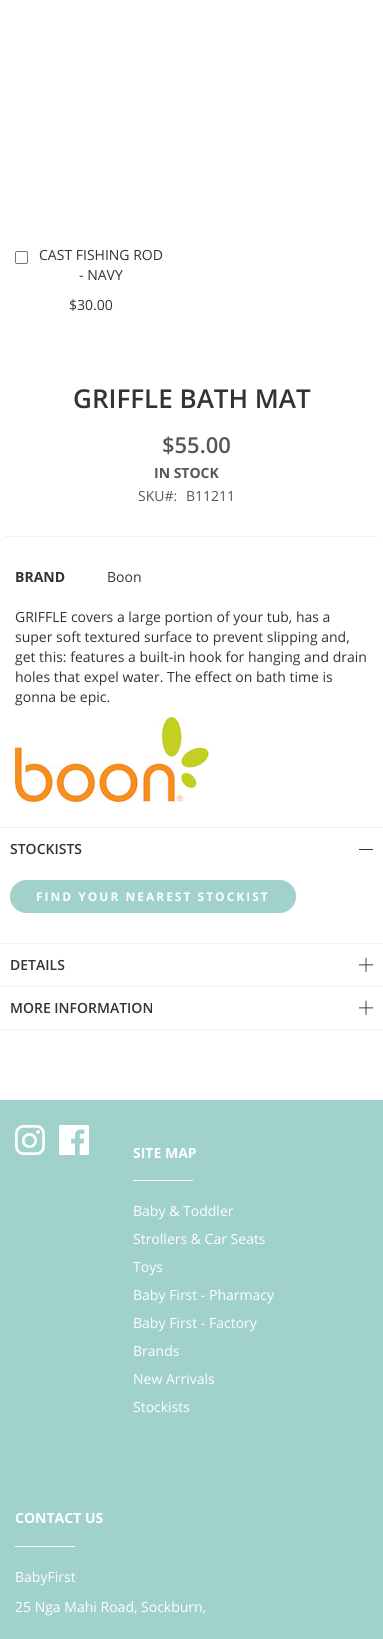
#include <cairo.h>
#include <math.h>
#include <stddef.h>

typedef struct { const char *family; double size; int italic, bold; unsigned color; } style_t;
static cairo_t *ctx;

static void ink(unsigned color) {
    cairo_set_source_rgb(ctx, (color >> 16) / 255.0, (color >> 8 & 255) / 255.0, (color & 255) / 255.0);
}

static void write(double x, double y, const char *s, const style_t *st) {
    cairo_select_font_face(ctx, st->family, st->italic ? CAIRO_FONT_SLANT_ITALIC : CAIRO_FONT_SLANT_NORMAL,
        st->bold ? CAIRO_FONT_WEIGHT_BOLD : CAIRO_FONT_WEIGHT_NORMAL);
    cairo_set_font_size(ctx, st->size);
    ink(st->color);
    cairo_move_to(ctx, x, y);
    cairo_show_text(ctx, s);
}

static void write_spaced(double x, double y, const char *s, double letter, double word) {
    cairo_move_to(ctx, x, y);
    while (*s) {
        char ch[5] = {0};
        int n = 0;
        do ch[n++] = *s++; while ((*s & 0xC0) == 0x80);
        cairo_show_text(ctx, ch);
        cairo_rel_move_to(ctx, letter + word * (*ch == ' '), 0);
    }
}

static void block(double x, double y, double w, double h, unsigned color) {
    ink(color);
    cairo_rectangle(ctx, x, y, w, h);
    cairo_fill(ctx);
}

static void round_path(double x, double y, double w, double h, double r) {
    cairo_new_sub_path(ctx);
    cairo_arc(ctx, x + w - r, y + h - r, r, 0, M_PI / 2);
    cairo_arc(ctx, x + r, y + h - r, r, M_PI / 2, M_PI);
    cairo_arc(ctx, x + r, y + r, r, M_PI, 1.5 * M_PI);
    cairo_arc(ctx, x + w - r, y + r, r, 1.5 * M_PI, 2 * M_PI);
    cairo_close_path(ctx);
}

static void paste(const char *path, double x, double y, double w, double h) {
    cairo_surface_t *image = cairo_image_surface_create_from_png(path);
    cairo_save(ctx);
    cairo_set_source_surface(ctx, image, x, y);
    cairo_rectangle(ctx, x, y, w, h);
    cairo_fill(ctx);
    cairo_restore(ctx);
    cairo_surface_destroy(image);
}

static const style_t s1 = {"Open Sans", 14, 0, 0, 0x333333};
static const style_t s2 = {"Open Sans SemiBold", 26, 0, 0, 0x333333};
static const style_t s3 = {"Open Sans SemiBold", 22, 0, 0, 0x575757};
static const style_t s4 = {"Open Sans", 14, 0, 1, 0x575757};
static const style_t s5 = {"Open Sans", 14, 0, 0, 0x575757};
static const style_t s6 = {"Open Sans", 14, 0, 1, 0x333333};
static const style_t s7 = {"Open Sans SemiBold", 14, 0, 0, 0x333333};
static const style_t s8 = {"Open Sans", 14, 0, 1, 0xffffff};
static const style_t s9 = {"Open Sans", 14, 0, 0, 0xffffff};

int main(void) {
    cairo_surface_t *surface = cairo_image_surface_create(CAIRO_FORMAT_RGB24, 383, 1639);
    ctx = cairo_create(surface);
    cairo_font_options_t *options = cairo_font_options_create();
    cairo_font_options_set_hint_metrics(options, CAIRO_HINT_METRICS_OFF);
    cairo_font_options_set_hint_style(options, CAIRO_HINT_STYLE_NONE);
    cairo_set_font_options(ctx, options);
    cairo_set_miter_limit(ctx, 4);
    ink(0xffffff);
    cairo_paint(ctx);
    round_path(15.5, 251.5, 12, 12, 1.5);
    ink(0x767676);
    cairo_set_line_width(ctx, 1);
    cairo_stroke(ctx);
    write(39, 260, "CAST FISHING ROD", &s1);
    write(79, 280, "- NAVY", &s1);
    write(69, 310, "$30.00", &s1);
    write(73, 408, "GRIFFLE BATH MAT", &s2);
    block(5, 536, 373, 1, 0xf1f1f1);
    write(162, 453, "$55.00", &s3);
    write(154, 478, "IN STOCK", &s4);
    write(138, 501, "SKU#:", &s5);
    write(186, 501, "B11211", &s5);
    write(15, 582, "BRAND", &s6);
    write(107, 582, "Boon", &s1);
    write(15, 622, "GRIFFLE covers a large portion of your tub, has a", &s1);
    write(15, 642, "super soft textured surface to prevent slipping and,", &s1);
    write(15, 662, "get this: features a built-in hook for hanging and drain", &s1);
    write(15, 682, "holes that expel water. The effect on bath time is", &s1);
    write(15, 702, "gonna be epic.", &s1);
    paste("pic1.png", 15, 717, 195, 85);
    block(0, 1029, 383, 1, 0xf1f1f1);
    block(0, 827, 383, 1, 0xf1f1f1);
    write(10, 854, "STOCKISTS", &s7);
    block(359, 849, 14, 1, 0x333333);
    ink(0xa0d1ca);
    round_path(10.5, 880.5, 285, 32, 16);
    cairo_fill_preserve(ctx);
    cairo_stroke(ctx);
    cairo_select_font_face(ctx, "Open Sans", CAIRO_FONT_SLANT_NORMAL, CAIRO_FONT_WEIGHT_BOLD);
    cairo_set_font_size(ctx, 12);
    ink(0xffffff);
    write_spaced(36, 901, "FIND YOUR NEAREST STOCKIST", 2, 0);
    block(0, 943, 383, 1, 0xf1f1f1);
    write(10, 970, "DETAILS", &s7);
    paste("pic2.png", 359, 957, 14, 15);
    block(0, 986, 383, 1, 0xf1f1f1);
    write(10, 1013, "MORE INFORMATION", &s7);
    paste("pic2.png", 359, 1000, 14, 15);
    block(0, 1100, 383, 539, 0xa0d1ca);
    paste("pic3.png", 15, 1125, 30, 30);
    paste("pic4.png", 59, 1125, 30, 30);
    write(133, 1158, "SITE MAP", &s8);
    block(133, 1180, 60, 1, 0xffffff);
    write(133, 1216, "Baby & Toddler", &s9);
    write(133, 1244, "Strollers & Car Seats", &s9);
    write(133, 1272, "Toys", &s9);
    write(133, 1300, "Baby First - Pharmacy", &s9);
    write(133, 1328, "Baby First - Factory", &s9);
    write(133, 1356, "Brands", &s9);
    write(133, 1384, "New Arrivals", &s9);
    write(133, 1412, "Stockists", &s9);
    write(15, 1523, "CONTACT US", &s8);
    block(15, 1546, 60, 1, 0xffffff);
    write(15, 1582, "BabyFirst", &s9);
    write(15, 1612, "25 Nga Mahi Road, Sockburn,", &s9);
    cairo_surface_write_to_png(surface, "screenshot.png");
    cairo_font_options_destroy(options);
    cairo_destroy(ctx);
    cairo_surface_destroy(surface);
    return 0;
}
